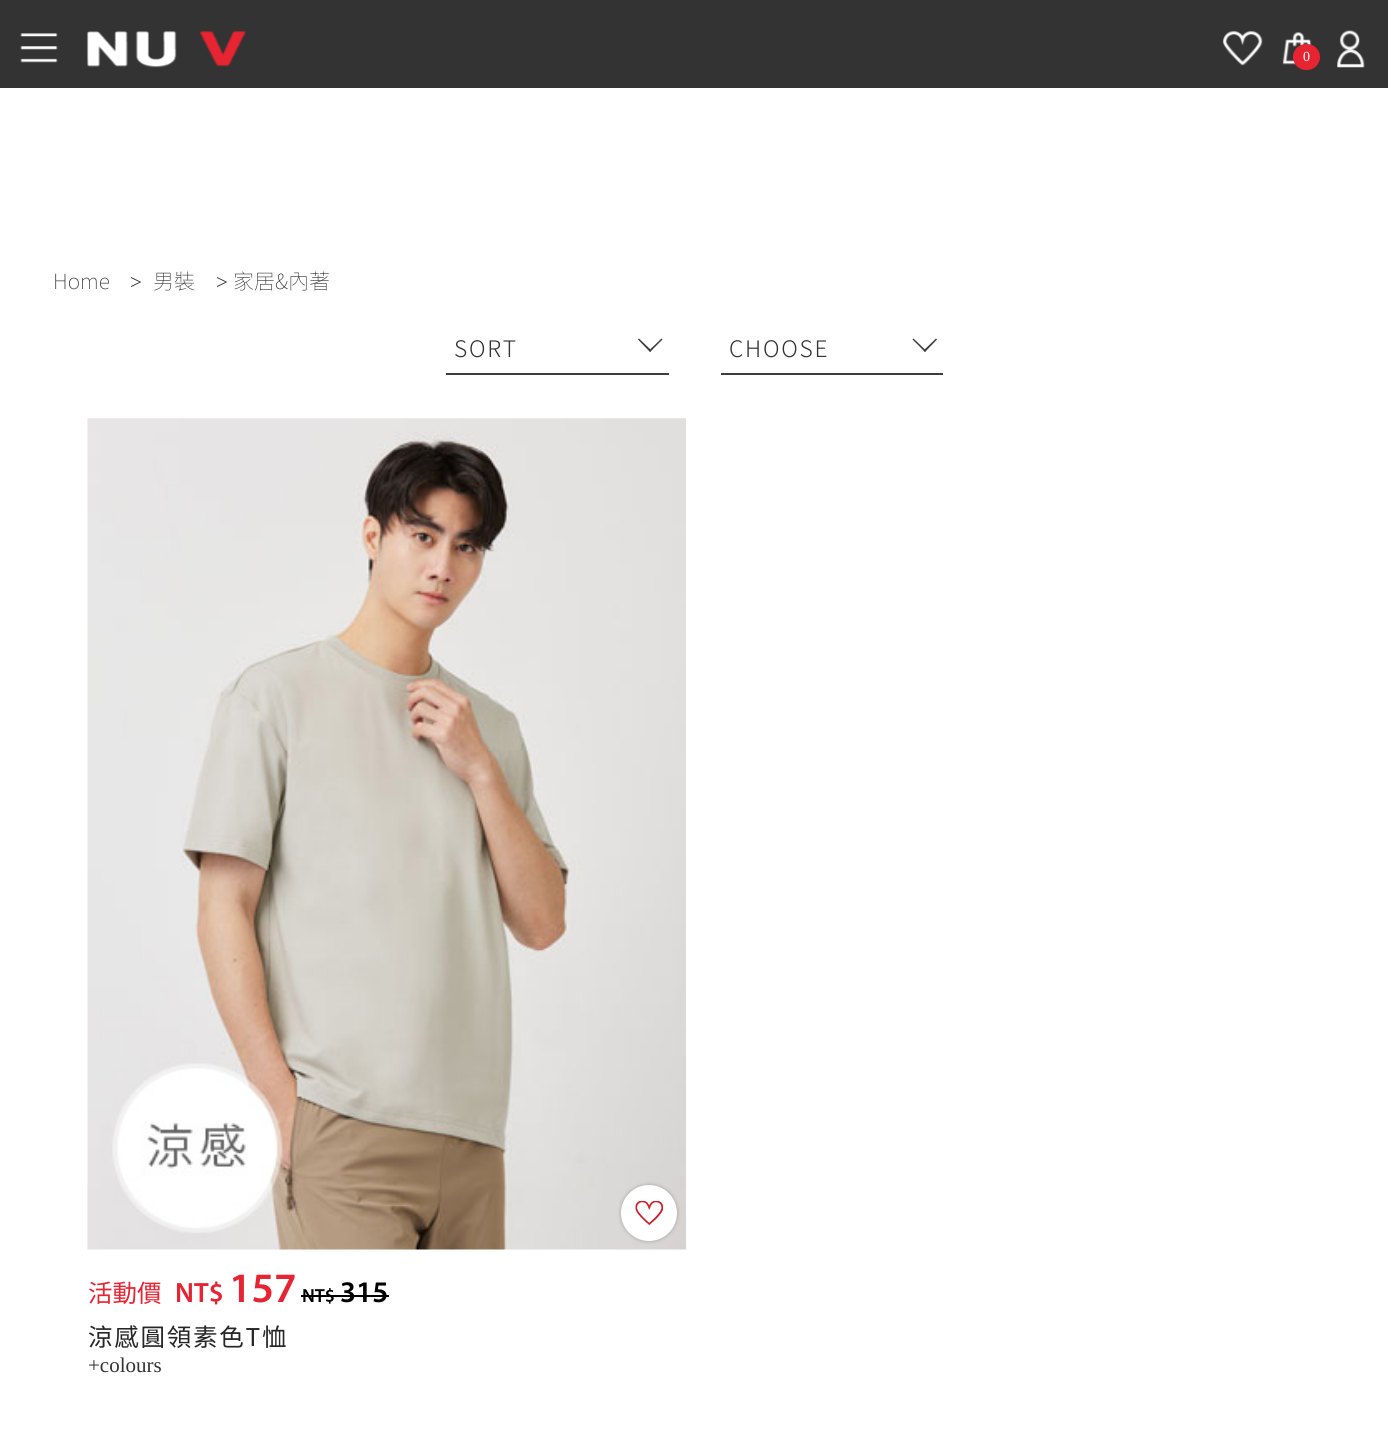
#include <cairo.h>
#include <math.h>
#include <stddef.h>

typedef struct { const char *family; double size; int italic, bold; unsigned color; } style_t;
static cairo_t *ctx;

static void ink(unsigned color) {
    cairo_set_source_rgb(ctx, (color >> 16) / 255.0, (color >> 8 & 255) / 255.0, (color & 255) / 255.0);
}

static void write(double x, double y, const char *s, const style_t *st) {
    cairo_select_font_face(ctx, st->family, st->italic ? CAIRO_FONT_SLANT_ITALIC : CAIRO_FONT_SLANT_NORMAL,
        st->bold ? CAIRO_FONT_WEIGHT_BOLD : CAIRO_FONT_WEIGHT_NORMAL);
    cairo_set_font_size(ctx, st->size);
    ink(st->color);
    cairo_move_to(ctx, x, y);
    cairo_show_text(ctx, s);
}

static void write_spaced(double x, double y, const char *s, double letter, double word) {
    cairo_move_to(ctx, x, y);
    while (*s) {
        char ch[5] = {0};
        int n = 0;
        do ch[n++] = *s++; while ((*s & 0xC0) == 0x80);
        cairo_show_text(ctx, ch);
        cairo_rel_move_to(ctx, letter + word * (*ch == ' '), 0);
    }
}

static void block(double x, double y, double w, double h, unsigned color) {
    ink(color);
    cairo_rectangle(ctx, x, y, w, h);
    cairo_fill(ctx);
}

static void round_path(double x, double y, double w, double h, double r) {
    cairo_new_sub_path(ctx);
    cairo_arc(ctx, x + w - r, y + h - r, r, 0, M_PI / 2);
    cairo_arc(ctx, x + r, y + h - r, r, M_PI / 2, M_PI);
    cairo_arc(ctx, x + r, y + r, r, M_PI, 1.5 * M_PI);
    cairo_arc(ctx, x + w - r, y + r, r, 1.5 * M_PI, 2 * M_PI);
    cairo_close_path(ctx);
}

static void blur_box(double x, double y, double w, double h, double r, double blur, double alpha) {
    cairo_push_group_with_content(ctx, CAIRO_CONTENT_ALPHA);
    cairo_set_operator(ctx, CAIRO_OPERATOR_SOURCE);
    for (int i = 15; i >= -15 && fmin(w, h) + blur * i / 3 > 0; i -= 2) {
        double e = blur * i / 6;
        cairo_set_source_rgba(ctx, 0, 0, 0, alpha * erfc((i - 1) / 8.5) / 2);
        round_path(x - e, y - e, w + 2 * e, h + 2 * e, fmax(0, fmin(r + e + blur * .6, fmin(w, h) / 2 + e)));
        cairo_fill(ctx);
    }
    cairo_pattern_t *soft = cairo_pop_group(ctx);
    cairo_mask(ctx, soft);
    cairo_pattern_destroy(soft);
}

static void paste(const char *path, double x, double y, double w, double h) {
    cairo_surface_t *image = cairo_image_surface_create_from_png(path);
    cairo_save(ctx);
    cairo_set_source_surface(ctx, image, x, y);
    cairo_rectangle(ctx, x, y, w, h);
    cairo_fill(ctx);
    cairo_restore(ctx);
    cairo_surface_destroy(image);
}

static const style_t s1 = {"Liberation Serif", 14, 0, 0, 0xffffff};
static const style_t s2 = {"Noto Sans TC Thin", 21, 0, 0, 0x333333};
static const style_t s3 = {"Liberation Serif", 21, 0, 0, 0x333333};
static const style_t s4 = {"Noto Sans TC", 24.5, 0, 0, 0xe72431};
static const style_t s5 = {"Myriad SemiBold", 28, 0, 0, 0xe72431};
static const style_t s6 = {"Myriad SemiBold", 42, 0, 0, 0xe72431};
static const style_t s7 = {"Myriad SemiBold", 19, 0, 0, 0x000000};
static const style_t s8 = {"Myriad SemiBold", 30, 0, 0, 0x000000};

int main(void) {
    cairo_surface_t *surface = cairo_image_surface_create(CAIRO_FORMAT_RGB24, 1388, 1429);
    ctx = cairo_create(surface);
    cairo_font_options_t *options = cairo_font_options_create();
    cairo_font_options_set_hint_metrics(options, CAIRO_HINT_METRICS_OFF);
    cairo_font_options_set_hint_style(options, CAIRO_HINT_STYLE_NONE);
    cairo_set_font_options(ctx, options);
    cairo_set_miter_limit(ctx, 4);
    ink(0xffffff);
    cairo_paint(ctx);
    block(0, 0, 1388, 88, 0x333333);
    paste("pic1.png", 20, 33, 38, 30);
    paste("pic2.png", 87, 31, 159, 37);
    paste("pic3.png", 1223, 31, 40, 35);
    paste("pic4.png", 1282, 32, 30, 33);
    ink(0xe72431);
    round_path(1293, 44, 27, 26, 13);
    cairo_fill(ctx);
    write(1303, 61, "0", &s1);
    paste("pic5.png", 1337, 30, 28, 38);
    write(53, 289, "Home", &s2);
    write(130, 289, ">", &s3);
    write(153, 289, "男裝", &s2);
    write(216, 289, ">", &s3);
    write(233, 289, "家居&內著", &s2);
    block(446, 373, 223, 2, 0x3d3d3d);
    cairo_select_font_face(ctx, "Noto Sans TC Light", CAIRO_FONT_SLANT_NORMAL, CAIRO_FONT_WEIGHT_NORMAL);
    cairo_set_font_size(ctx, 22.75);
    ink(0x333333);
    write_spaced(454, 357, "SORT", 1.75, 0);
    ink(0x3d3d3d);
    cairo_new_path(ctx);
    cairo_move_to(ctx, 661.5, 338.5);
    cairo_line_to(ctx, 662.5, 339.5);
    cairo_line_to(ctx, 650, 352);
    cairo_line_to(ctx, 649, 350.5);
    cairo_close_path(ctx);
    cairo_fill(ctx);
    cairo_new_path(ctx);
    cairo_move_to(ctx, 639, 338.5);
    cairo_line_to(ctx, 651.5, 350.5);
    cairo_line_to(ctx, 650, 352);
    cairo_line_to(ctx, 638, 339.5);
    cairo_close_path(ctx);
    cairo_fill(ctx);
    block(721, 373, 222, 2, 0x3d3d3d);
    ink(0x333333);
    write_spaced(729, 357, "CHOOSE", 1.75, 0);
    ink(0x3d3d3d);
    cairo_new_path(ctx);
    cairo_move_to(ctx, 936, 338.5);
    cairo_line_to(ctx, 937, 339.5);
    cairo_line_to(ctx, 925, 352);
    cairo_line_to(ctx, 923.5, 350.5);
    cairo_close_path(ctx);
    cairo_fill(ctx);
    cairo_new_path(ctx);
    cairo_move_to(ctx, 913.5, 338.5);
    cairo_line_to(ctx, 926, 350.5);
    cairo_line_to(ctx, 925, 352);
    cairo_line_to(ctx, 912.5, 339.5);
    cairo_close_path(ctx);
    cairo_fill(ctx);
    paste("pic6.png", 87, 418, 599, 832);
    ink(0x000000);
    blur_box(621, 1185, 56, 56, 28, 2, 0.25);
    ink(0xffffff);
    cairo_arc(ctx, 649, 1213, 28, 0, 2 * M_PI);
    cairo_fill(ctx);
    paste("pic7.png", 635, 1201, 28, 24);
    write(88, 1302, "活動價", &s4);
    write(175, 1302, "NT$", &s5);
    write(229, 1302, "157", &s6);
    write(302, 1302, "NT$", &s7);
    write(340, 1302, "315", &s8);
    block(301, 1295, 88, 2, 0x000000);
    cairo_select_font_face(ctx, "Noto Sans TC", CAIRO_FONT_SLANT_NORMAL, CAIRO_FONT_WEIGHT_NORMAL);
    cairo_set_font_size(ctx, 24.5);
    ink(0x262626);
    write_spaced(88, 1346, "涼感圓領素色T恤", 1.75, 0);
    write(88, 1372, "+colours", &s3);
    cairo_surface_write_to_png(surface, "screenshot.png");
    cairo_font_options_destroy(options);
    cairo_destroy(ctx);
    cairo_surface_destroy(surface);
    return 0;
}
